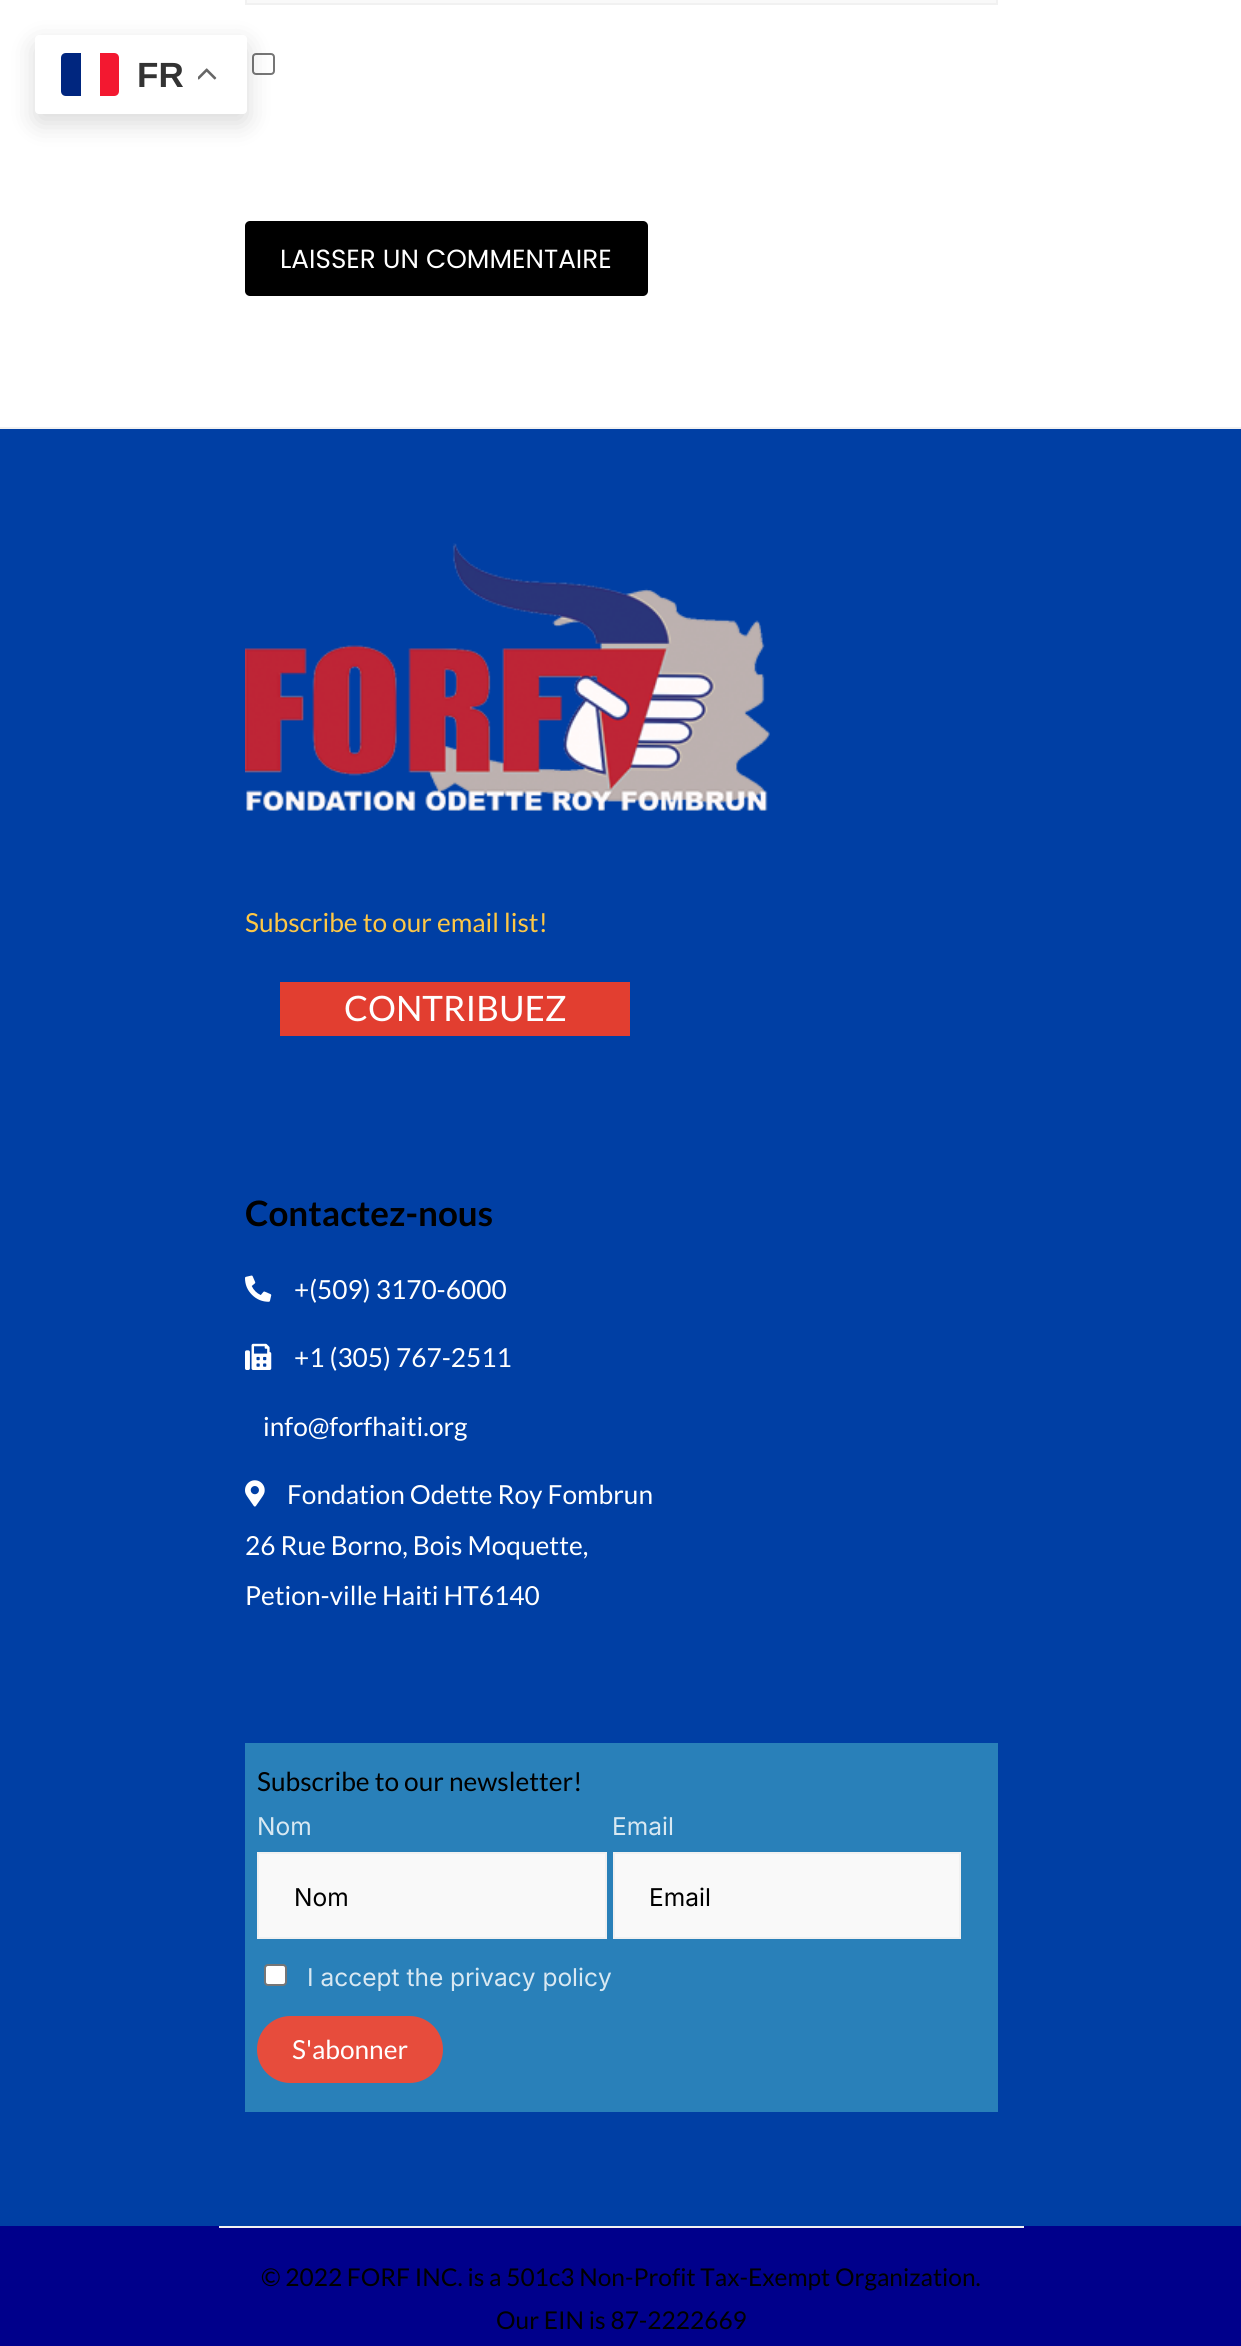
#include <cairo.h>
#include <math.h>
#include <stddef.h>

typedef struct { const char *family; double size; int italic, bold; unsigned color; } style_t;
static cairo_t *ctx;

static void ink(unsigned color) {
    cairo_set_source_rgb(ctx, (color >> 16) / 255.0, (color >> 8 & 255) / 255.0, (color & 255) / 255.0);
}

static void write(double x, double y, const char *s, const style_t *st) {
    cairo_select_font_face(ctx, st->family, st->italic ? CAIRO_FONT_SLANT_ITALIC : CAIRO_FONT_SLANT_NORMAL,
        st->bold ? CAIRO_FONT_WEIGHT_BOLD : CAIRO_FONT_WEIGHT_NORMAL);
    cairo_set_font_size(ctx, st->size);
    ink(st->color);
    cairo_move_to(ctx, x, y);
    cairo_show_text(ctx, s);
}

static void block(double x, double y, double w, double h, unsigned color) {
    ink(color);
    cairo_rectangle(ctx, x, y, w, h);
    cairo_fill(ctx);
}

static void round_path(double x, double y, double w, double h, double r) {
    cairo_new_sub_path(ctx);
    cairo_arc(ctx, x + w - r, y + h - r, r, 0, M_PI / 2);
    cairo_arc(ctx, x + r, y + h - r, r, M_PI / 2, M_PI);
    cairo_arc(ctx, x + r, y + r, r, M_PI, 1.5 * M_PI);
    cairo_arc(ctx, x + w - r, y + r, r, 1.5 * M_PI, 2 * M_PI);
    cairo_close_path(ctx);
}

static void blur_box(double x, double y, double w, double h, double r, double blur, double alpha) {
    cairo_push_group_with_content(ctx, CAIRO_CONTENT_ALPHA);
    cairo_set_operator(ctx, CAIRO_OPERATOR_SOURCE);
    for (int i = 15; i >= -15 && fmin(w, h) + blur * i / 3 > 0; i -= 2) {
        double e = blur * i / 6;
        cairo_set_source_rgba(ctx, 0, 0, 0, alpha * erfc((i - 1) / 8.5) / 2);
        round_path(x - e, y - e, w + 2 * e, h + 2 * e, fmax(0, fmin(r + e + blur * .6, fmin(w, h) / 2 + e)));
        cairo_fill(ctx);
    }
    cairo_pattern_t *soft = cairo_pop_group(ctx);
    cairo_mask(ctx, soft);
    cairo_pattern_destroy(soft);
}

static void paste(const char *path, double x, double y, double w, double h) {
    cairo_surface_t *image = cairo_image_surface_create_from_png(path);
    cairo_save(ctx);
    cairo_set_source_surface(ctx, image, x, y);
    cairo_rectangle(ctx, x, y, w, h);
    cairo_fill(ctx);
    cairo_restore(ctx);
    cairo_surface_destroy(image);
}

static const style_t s1 = {"Liberation Sans", 35, 0, 1, 0x333333};
static const style_t s2 = {"Poppins", 26.25, 0, 0, 0xffffff};
static const style_t s3 = {"Lato", 26.25, 0, 0, 0xfec745};
static const style_t s4 = {"Lato", 35, 0, 0, 0xffffff};
static const style_t s5 = {"Lato", 35, 0, 1, 0x000000};
static const style_t s6 = {"Lato", 26.25, 0, 0, 0xffffff};
static const style_t s7 = {"Lato", 26.25, 0, 0, 0x000000};
static const style_t s8 = {"Inter", 24.5, 0, 0, 0xd8e8f2};
static const style_t s9 = {"Inter", 24.5, 0, 0, 0x000000};
static const style_t s10 = {"Lato", 24.5, 0, 0, 0x000000};

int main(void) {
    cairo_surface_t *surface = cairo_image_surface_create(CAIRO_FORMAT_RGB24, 1241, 2346);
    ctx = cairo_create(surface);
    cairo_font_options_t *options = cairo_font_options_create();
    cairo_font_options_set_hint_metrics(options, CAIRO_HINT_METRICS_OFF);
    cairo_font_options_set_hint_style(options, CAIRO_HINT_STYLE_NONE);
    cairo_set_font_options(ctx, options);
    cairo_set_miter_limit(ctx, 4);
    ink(0xffffff);
    cairo_paint(ctx);
    ink(0xf9f9f9);
    cairo_rectangle(ctx, 246, -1, 751, 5);
    cairo_fill_preserve(ctx);
    ink(0xf1f1f1);
    cairo_stroke(ctx);
    round_path(253, 54, 21, 20, 3);
    ink(0x767676);
    cairo_stroke(ctx);
    ink(0x000000);
    blur_box(35, 44, 212, 79, 4, 13, 0.15);
    ink(0xffffff);
    round_path(35, 35, 212, 79, 4);
    cairo_fill(ctx);
    ink(0x00267f);
    cairo_new_path(ctx);
    cairo_move_to(ctx, 66, 53);
    cairo_line_to(ctx, 81, 53);
    cairo_line_to(ctx, 81, 96);
    cairo_line_to(ctx, 66, 96);
    cairo_curve_to(ctx, 63, 96, 61, 94, 61, 91);
    cairo_line_to(ctx, 61, 58);
    cairo_curve_to(ctx, 61, 55, 63, 53, 66, 53);
    cairo_close_path(ctx);
    cairo_fill(ctx);
    ink(0xf31830);
    cairo_new_path(ctx);
    cairo_move_to(ctx, 100, 53);
    cairo_line_to(ctx, 114, 53);
    cairo_curve_to(ctx, 117, 53, 119, 55, 119, 58);
    cairo_line_to(ctx, 119, 91);
    cairo_curve_to(ctx, 119, 94, 117, 96, 114, 96);
    cairo_line_to(ctx, 100, 96);
    cairo_close_path(ctx);
    cairo_fill(ctx);
    write(137, 87, "FR", &s1);
    paste("pic1.png", 198, 68, 19, 12);
    ink(0x000000);
    round_path(245, 221, 403, 75, 5);
    cairo_fill(ctx);
    write(280, 268, "LAISSER UN COMMENTAIRE", &s2);
    block(0, 429, 1241, 1797, 0x003fa4);
    block(0, 427, 1241, 2, 0xf1f1f1);
    paste("pic2.png", 245, 543, 525, 268);
    write(245, 932, "Subscribe to our email list!", &s3);
    block(280, 982, 350, 54, 0xe23e30);
    write(344, 1021, "CONTRIBUEZ", &s4);
    write(245, 1226, "Contactez-nous", &s5);
    paste("pic3.png", 245, 1275, 27, 27);
    write(294, 1299, "+(509) 3170-6000", &s6);
    paste("pic4.png", 245, 1343, 27, 27);
    write(294, 1367, "+1 (305) 767-2511", &s6);
    write(263, 1436, "info@forfhaiti.org", &s6);
    paste("pic5.png", 245, 1480, 20, 27);
    write(287, 1504, "Fondation Odette Roy Fombrun", &s6);
    write(245, 1555, "26 Rue Borno, Bois Moquette,", &s6);
    write(245, 1605, "Petion-ville Haiti HT6140", &s6);
    block(245, 1743, 753, 369, 0x2980b9);
    write(257, 1791, "Subscribe to our newsletter!", &s7);
    write(257, 1835, "Nom", &s8);
    ink(0xf9f9f9);
    cairo_rectangle(ctx, 258, 1853, 348, 85);
    cairo_fill_preserve(ctx);
    ink(0xf1f1f1);
    cairo_stroke(ctx);
    write(294, 1906, "Nom", &s9);
    write(612, 1835, "Email", &s8);
    ink(0xf9f9f9);
    cairo_rectangle(ctx, 614, 1853, 346, 85);
    cairo_fill_preserve(ctx);
    ink(0xf1f1f1);
    cairo_stroke(ctx);
    write(649, 1906, "Email", &s9);
    ink(0xffffff);
    round_path(265, 1965, 21, 20, 3);
    cairo_fill_preserve(ctx);
    ink(0x767676);
    cairo_stroke(ctx);
    write(307, 1986, "I accept the privacy policy", &s8);
    ink(0xe74c3c);
    round_path(257, 2016, 186, 67, 33.5);
    cairo_fill(ctx);
    write(292, 2059, "S'abonner", &s6);
    block(0, 2226, 1241, 120, 0x00008b);
    block(219, 2226, 805, 2, 0xf1f1f1);
    write(261, 2286, "© 2022 FORF INC. is a 501c3 Non-Profit Tax-Exempt Organization.", &s10);
    write(496, 2329, "Our EIN is 87-2222669", &s10);
    cairo_surface_write_to_png(surface, "screenshot.png");
    cairo_font_options_destroy(options);
    cairo_destroy(ctx);
    cairo_surface_destroy(surface);
    return 0;
}
